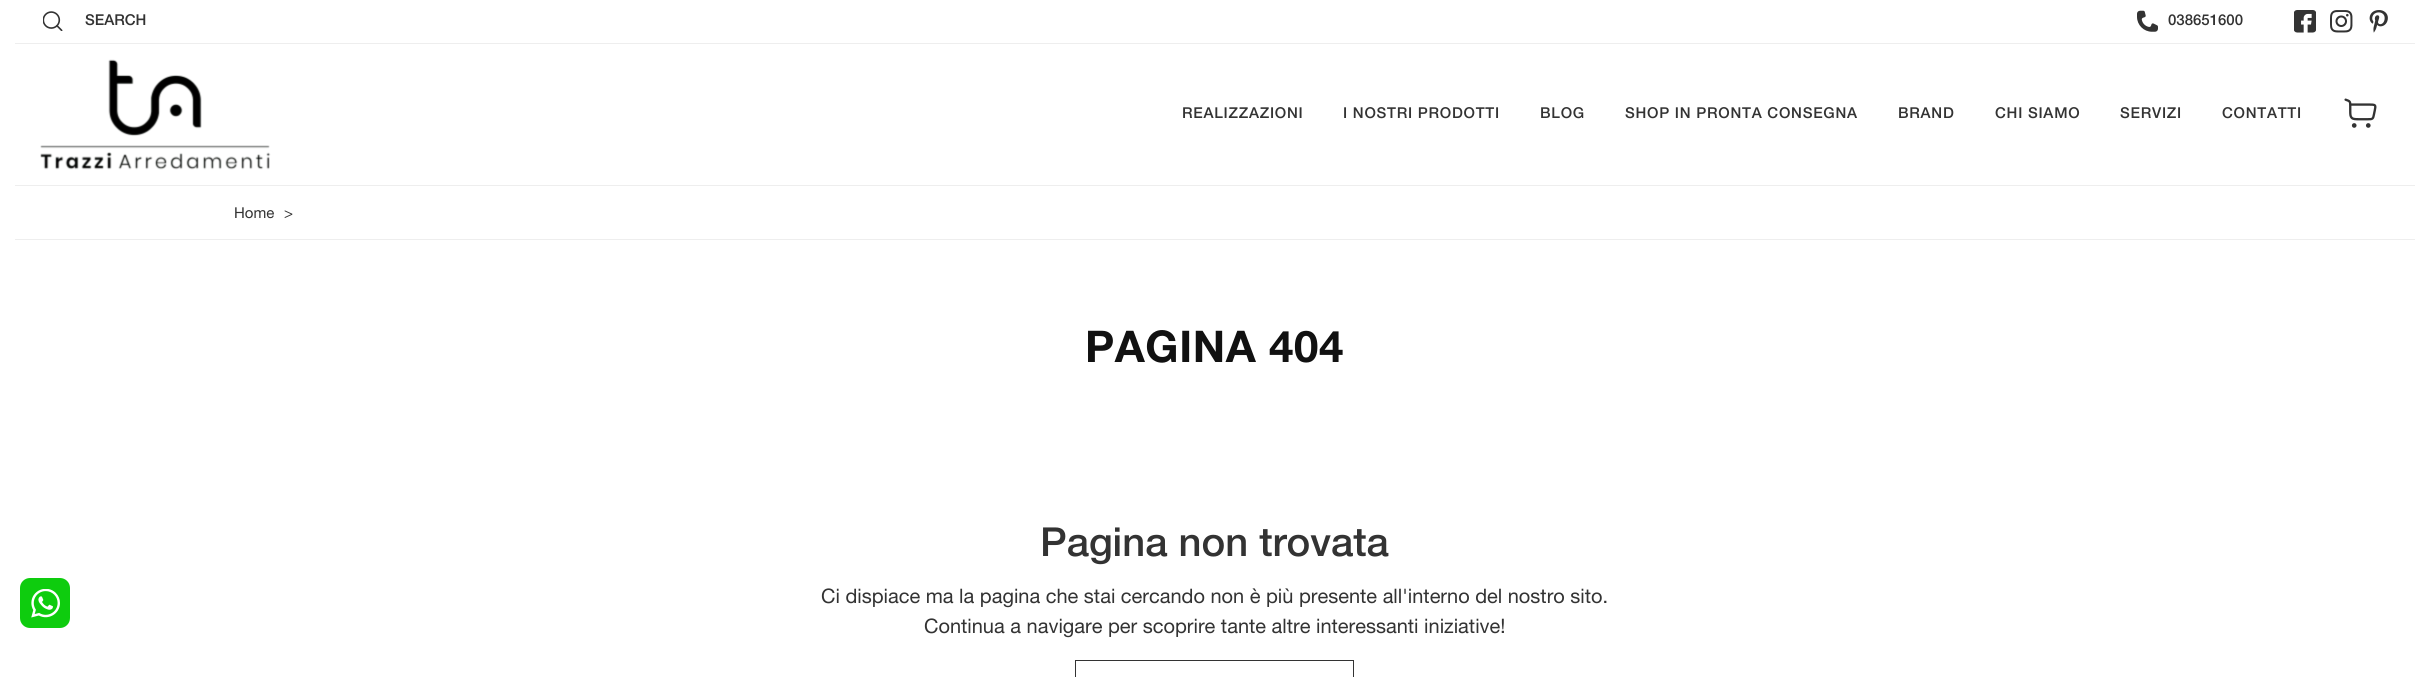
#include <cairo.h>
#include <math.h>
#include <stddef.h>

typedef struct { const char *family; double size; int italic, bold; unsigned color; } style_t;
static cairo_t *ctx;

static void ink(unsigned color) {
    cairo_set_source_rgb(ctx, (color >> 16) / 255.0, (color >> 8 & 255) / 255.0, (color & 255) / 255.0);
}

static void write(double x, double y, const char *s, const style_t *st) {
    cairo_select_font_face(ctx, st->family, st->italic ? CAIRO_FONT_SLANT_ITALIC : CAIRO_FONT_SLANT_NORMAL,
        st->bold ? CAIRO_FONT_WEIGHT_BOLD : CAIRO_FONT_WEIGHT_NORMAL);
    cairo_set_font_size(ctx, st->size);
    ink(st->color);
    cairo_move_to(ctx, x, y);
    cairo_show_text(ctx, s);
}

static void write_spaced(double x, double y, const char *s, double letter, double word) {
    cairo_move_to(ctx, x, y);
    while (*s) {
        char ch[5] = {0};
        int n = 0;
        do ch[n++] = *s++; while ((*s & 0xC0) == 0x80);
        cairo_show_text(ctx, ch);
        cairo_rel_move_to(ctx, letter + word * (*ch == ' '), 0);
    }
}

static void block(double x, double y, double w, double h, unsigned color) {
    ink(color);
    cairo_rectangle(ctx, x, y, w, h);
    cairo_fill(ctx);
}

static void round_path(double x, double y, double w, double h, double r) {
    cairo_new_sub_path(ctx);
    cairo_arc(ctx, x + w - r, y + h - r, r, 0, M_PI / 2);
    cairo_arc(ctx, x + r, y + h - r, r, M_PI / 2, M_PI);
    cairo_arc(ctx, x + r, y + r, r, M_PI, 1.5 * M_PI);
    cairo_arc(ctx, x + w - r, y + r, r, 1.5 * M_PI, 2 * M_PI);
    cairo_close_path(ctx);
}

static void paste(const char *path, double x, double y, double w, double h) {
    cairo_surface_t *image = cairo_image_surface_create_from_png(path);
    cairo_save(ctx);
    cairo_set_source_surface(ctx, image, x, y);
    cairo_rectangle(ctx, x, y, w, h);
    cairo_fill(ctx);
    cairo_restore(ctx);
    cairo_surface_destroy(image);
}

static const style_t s1 = {"Helvetica Neue Medium", 15, 0, 0, 0x333333};
static const style_t s2 = {"Helvetica Neue", 15, 0, 0, 0x333333};
static const style_t s3 = {"Helvetica Neue Medium", 40, 0, 0, 0x333333};
static const style_t s4 = {"Helvetica Neue", 20, 0, 0, 0x333333};

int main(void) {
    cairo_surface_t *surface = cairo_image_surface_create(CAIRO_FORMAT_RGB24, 2428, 677);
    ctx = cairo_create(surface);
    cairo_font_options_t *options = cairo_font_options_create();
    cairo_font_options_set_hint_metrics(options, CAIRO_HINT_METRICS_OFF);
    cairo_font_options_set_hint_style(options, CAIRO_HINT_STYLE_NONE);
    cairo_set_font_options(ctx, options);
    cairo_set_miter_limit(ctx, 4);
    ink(0xffffff);
    cairo_paint(ctx);
    block(15, 185, 2400, 1, 0xeeeeee);
    block(15, 43, 2400, 1, 0xeeeeee);
    paste("pic1.png", 43, 11, 20, 20);
    write(85, 25, "SEARCH", &s1);
    paste("pic2.png", 2137, 10, 21, 22);
    write(2168, 25, "038651600", &s1);
    paste("pic3.png", 2294, 10, 22, 23);
    paste("pic4.png", 2330, 10, 23, 23);
    paste("pic5.png", 2369, 10, 19, 23);
    paste("pic6.png", 40, 59, 231, 111);
    write_spaced(1182, 118, "REALIZZAZIONI", 0.75, 0);
    write_spaced(1343, 118, "I NOSTRI PRODOTTI", 0.75, 0);
    write_spaced(1540, 118, "BLOG", 0.75, 0);
    write_spaced(1625, 118, "SHOP IN PRONTA CONSEGNA", 0.75, 0);
    write_spaced(1898, 118, "BRAND", 0.75, 0);
    write_spaced(1995, 118, "CHI SIAMO", 0.75, 0);
    write_spaced(2120, 118, "SERVIZI", 0.75, 0);
    write_spaced(2222, 118, "CONTATTI", 0.75, 0);
    paste("pic7.png", 2344, 98, 33, 30);
    block(15, 239, 2400, 1, 0xeeeeee);
    write(234, 218, "Home", &s2);
    write(284, 218, ">", &s2);
    cairo_select_font_face(ctx, "Helvetica Neue", CAIRO_FONT_SLANT_NORMAL, CAIRO_FONT_WEIGHT_BOLD);
    cairo_set_font_size(ctx, 43.75);
    ink(0x111111);
    write_spaced(1085, 362, "PAGINA 404", 0.6, 0);
    ink(0x0ecc0e);
    round_path(20, 578, 50, 50, 10);
    cairo_fill(ctx);
    paste("pic8.png", 31, 589, 29, 29);
    write(1040, 556, "Pagina non trovata", &s3);
    write(821, 603, "Ci dispiace ma la pagina che stai cercando non è più presente all'interno del nostro sito.", &s4);
    write(924, 633, "Continua a navigare per scoprire tante altre interessanti iniziative!", &s4);
    cairo_rectangle(ctx, 1075.5, 660.5, 278, 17);
    cairo_set_line_width(ctx, 1);
    cairo_stroke(ctx);
    cairo_surface_write_to_png(surface, "screenshot.png");
    cairo_font_options_destroy(options);
    cairo_destroy(ctx);
    cairo_surface_destroy(surface);
    return 0;
}
